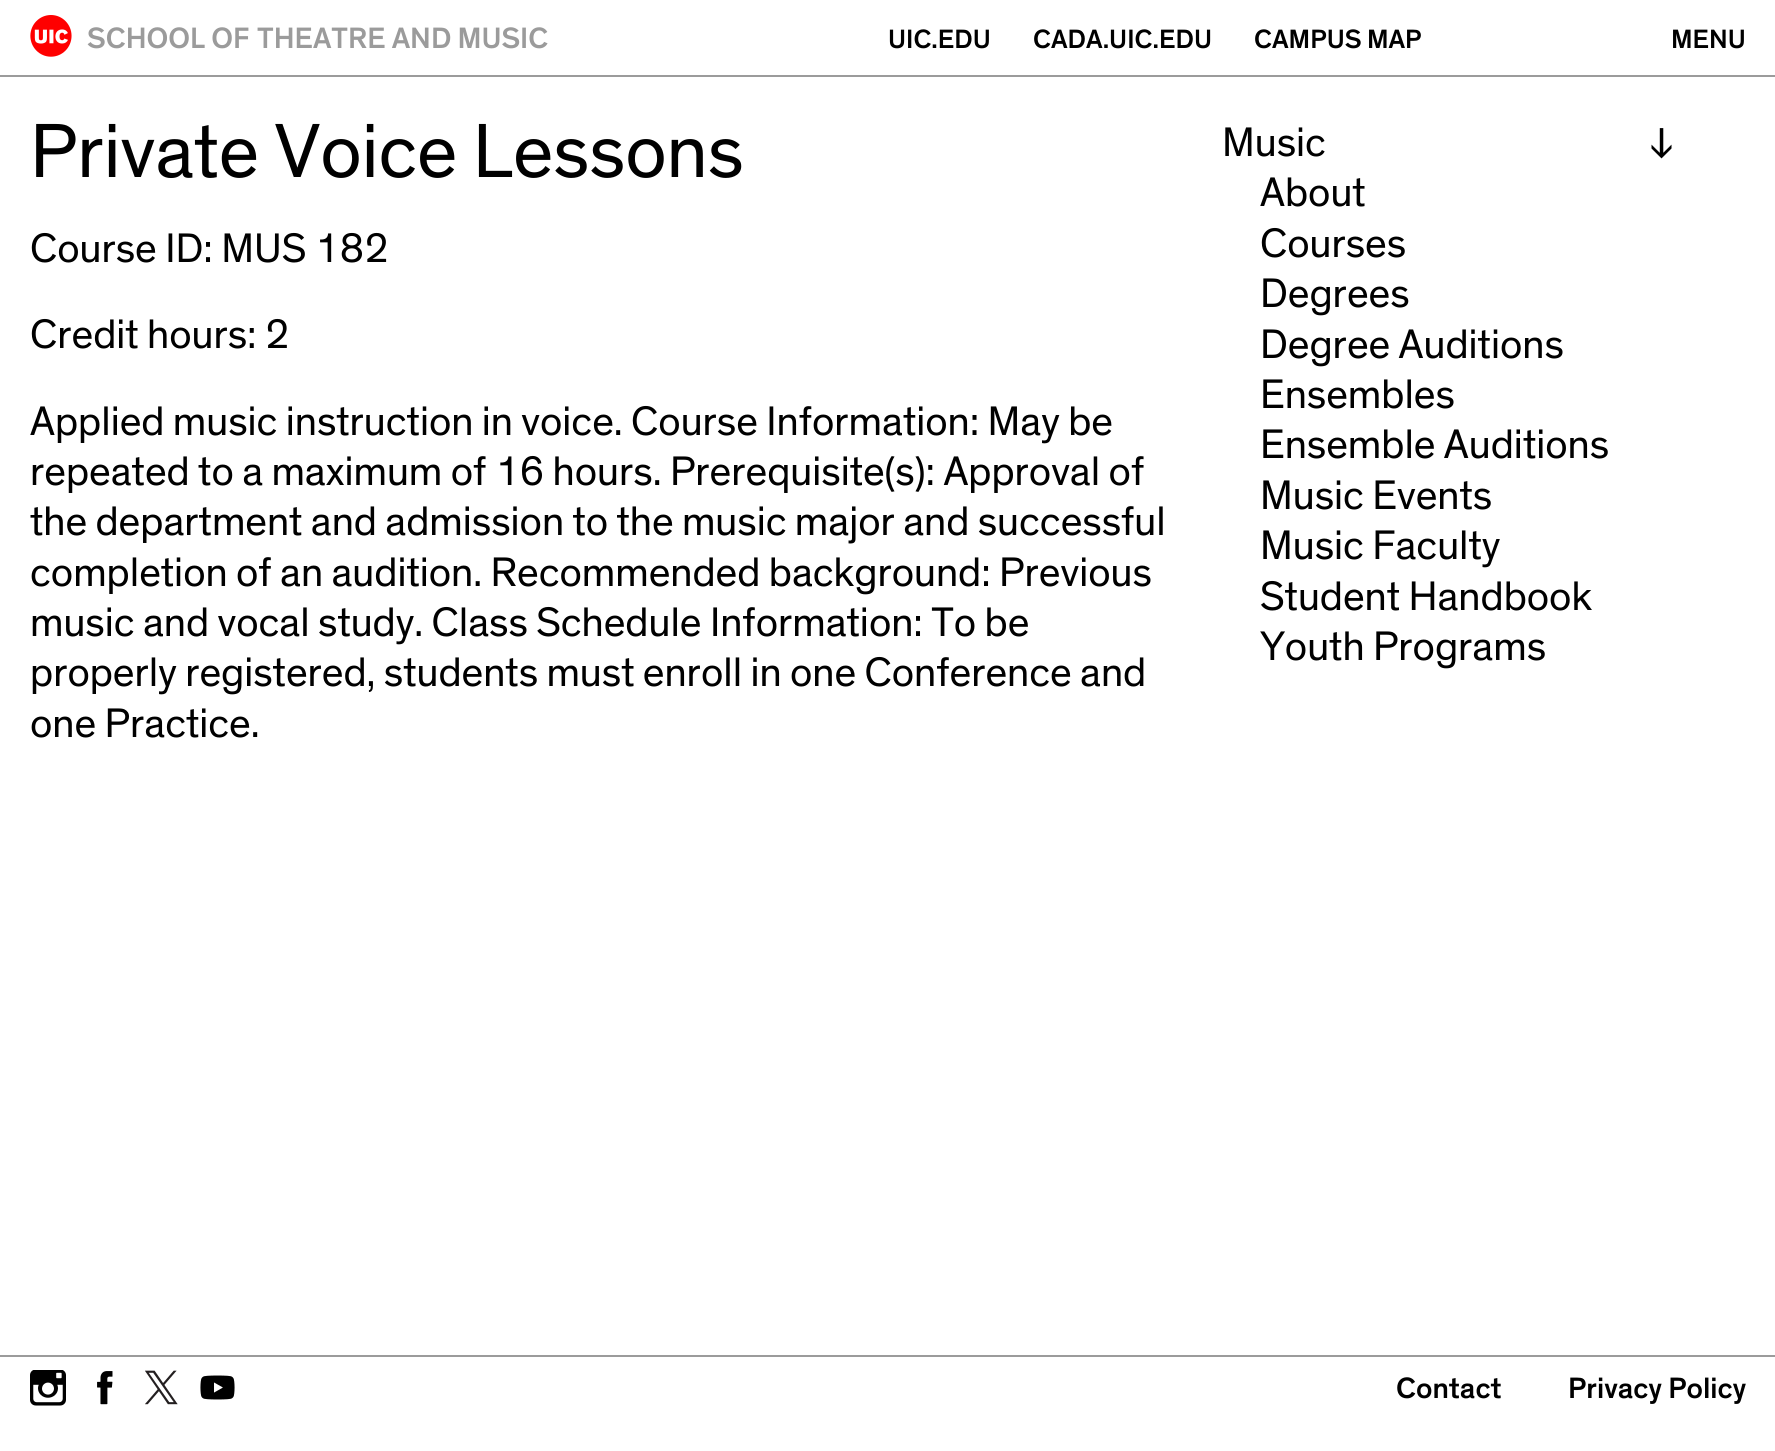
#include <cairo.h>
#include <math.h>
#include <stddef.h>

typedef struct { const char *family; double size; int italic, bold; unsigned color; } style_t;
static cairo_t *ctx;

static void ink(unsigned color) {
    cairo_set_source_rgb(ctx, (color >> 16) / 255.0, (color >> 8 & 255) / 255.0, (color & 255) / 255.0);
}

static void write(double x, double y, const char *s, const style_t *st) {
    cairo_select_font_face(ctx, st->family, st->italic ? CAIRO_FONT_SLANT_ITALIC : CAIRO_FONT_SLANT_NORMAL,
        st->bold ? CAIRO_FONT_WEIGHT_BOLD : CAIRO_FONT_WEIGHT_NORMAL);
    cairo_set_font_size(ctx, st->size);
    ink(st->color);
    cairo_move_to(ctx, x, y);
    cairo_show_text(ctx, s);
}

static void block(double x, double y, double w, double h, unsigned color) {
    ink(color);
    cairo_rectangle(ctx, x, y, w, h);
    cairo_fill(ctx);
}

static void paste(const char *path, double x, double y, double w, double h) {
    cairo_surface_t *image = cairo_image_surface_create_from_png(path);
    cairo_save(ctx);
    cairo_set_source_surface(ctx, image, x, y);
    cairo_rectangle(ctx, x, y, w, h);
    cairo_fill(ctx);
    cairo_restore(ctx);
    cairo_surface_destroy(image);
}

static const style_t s1 = {"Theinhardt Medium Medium", 30, 0, 0, 0x9b9b9b};
static const style_t s2 = {"Theinhardt Medium Medium", 27, 0, 0, 0x000000};
static const style_t s3 = {"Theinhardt", 78, 0, 0, 0x000000};
static const style_t s4 = {"Theinhardt", 42, 0, 0, 0x000000};
static const style_t s5 = {"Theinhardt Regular", 42, 0, 0, 0x000000};
static const style_t s6 = {"Theinhardt Medium Medium", 30, 0, 0, 0x000000};

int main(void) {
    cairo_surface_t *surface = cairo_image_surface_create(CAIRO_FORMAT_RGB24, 1775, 1451);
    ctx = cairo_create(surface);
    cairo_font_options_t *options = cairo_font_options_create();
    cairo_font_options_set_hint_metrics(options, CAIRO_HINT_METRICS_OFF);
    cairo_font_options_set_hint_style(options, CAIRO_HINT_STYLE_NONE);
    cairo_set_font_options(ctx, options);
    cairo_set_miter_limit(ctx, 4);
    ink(0xffffff);
    cairo_paint(ctx);
    block(0, 75, 1775, 2, 0x9b9b9b);
    paste("pic1.png", 30, 15, 42, 42);
    write(87, 48, "SCHOOL OF", &s1);
    write(257, 48, "THEATRE AND MUSIC", &s1);
    write(888, 48, "UIC.EDU", &s2);
    write(1033, 48, "CADA.UIC.EDU", &s2);
    write(1254, 48, "CAMPUS MAP", &s2);
    write(1671, 48, "MENU", &s2);
    write(30, 177, "Private Voice Lessons", &s3);
    write(30, 262, "Course ID: MUS 182", &s4);
    write(30, 348, "Credit hours: 2", &s4);
    write(30, 435, "Applied music instruction in voice. Course Information: May be", &s4);
    write(30, 485, "repeated to a maximum of 16 hours. Prerequisite(s): Approval of", &s4);
    write(30, 535, "the department and admission to the music major and successful", &s4);
    write(30, 586, "completion of an audition. Recommended background: Previous", &s4);
    write(30, 636, "music and vocal study. Class Schedule Information: To be", &s4);
    write(30, 686, "properly registered, students must enroll in one Conference and", &s4);
    write(30, 737, "one Practice.", &s4);
    write(1222, 156, "Music", &s4);
    write(1260, 206, "About", &s4);
    write(1260, 257, "Courses", &s4);
    write(1260, 307, "Degrees", &s4);
    write(1260, 358, "Degree Auditions", &s4);
    write(1260, 408, "Ensembles", &s4);
    write(1260, 458, "Ensemble Auditions", &s4);
    write(1260, 509, "Music Events", &s4);
    write(1260, 559, "Music Faculty", &s4);
    write(1260, 610, "Student Handbook", &s4);
    write(1260, 660, "Youth Programs", &s4);
    write(1649, 158, "↓", &s5);
    block(0, 1355, 1775, 2, 0x9b9b9b);
    paste("pic2.png", 30, 1370, 36, 36);
    paste("pic3.png", 97, 1371, 16, 34);
    paste("pic4.png", 145, 1370, 33, 35);
    paste("pic5.png", 200, 1375, 35, 25);
    write(1396, 1398, "Contact", &s6);
    write(1568, 1398, "Privacy Policy", &s6);
    cairo_surface_write_to_png(surface, "screenshot.png");
    cairo_font_options_destroy(options);
    cairo_destroy(ctx);
    cairo_surface_destroy(surface);
    return 0;
}
